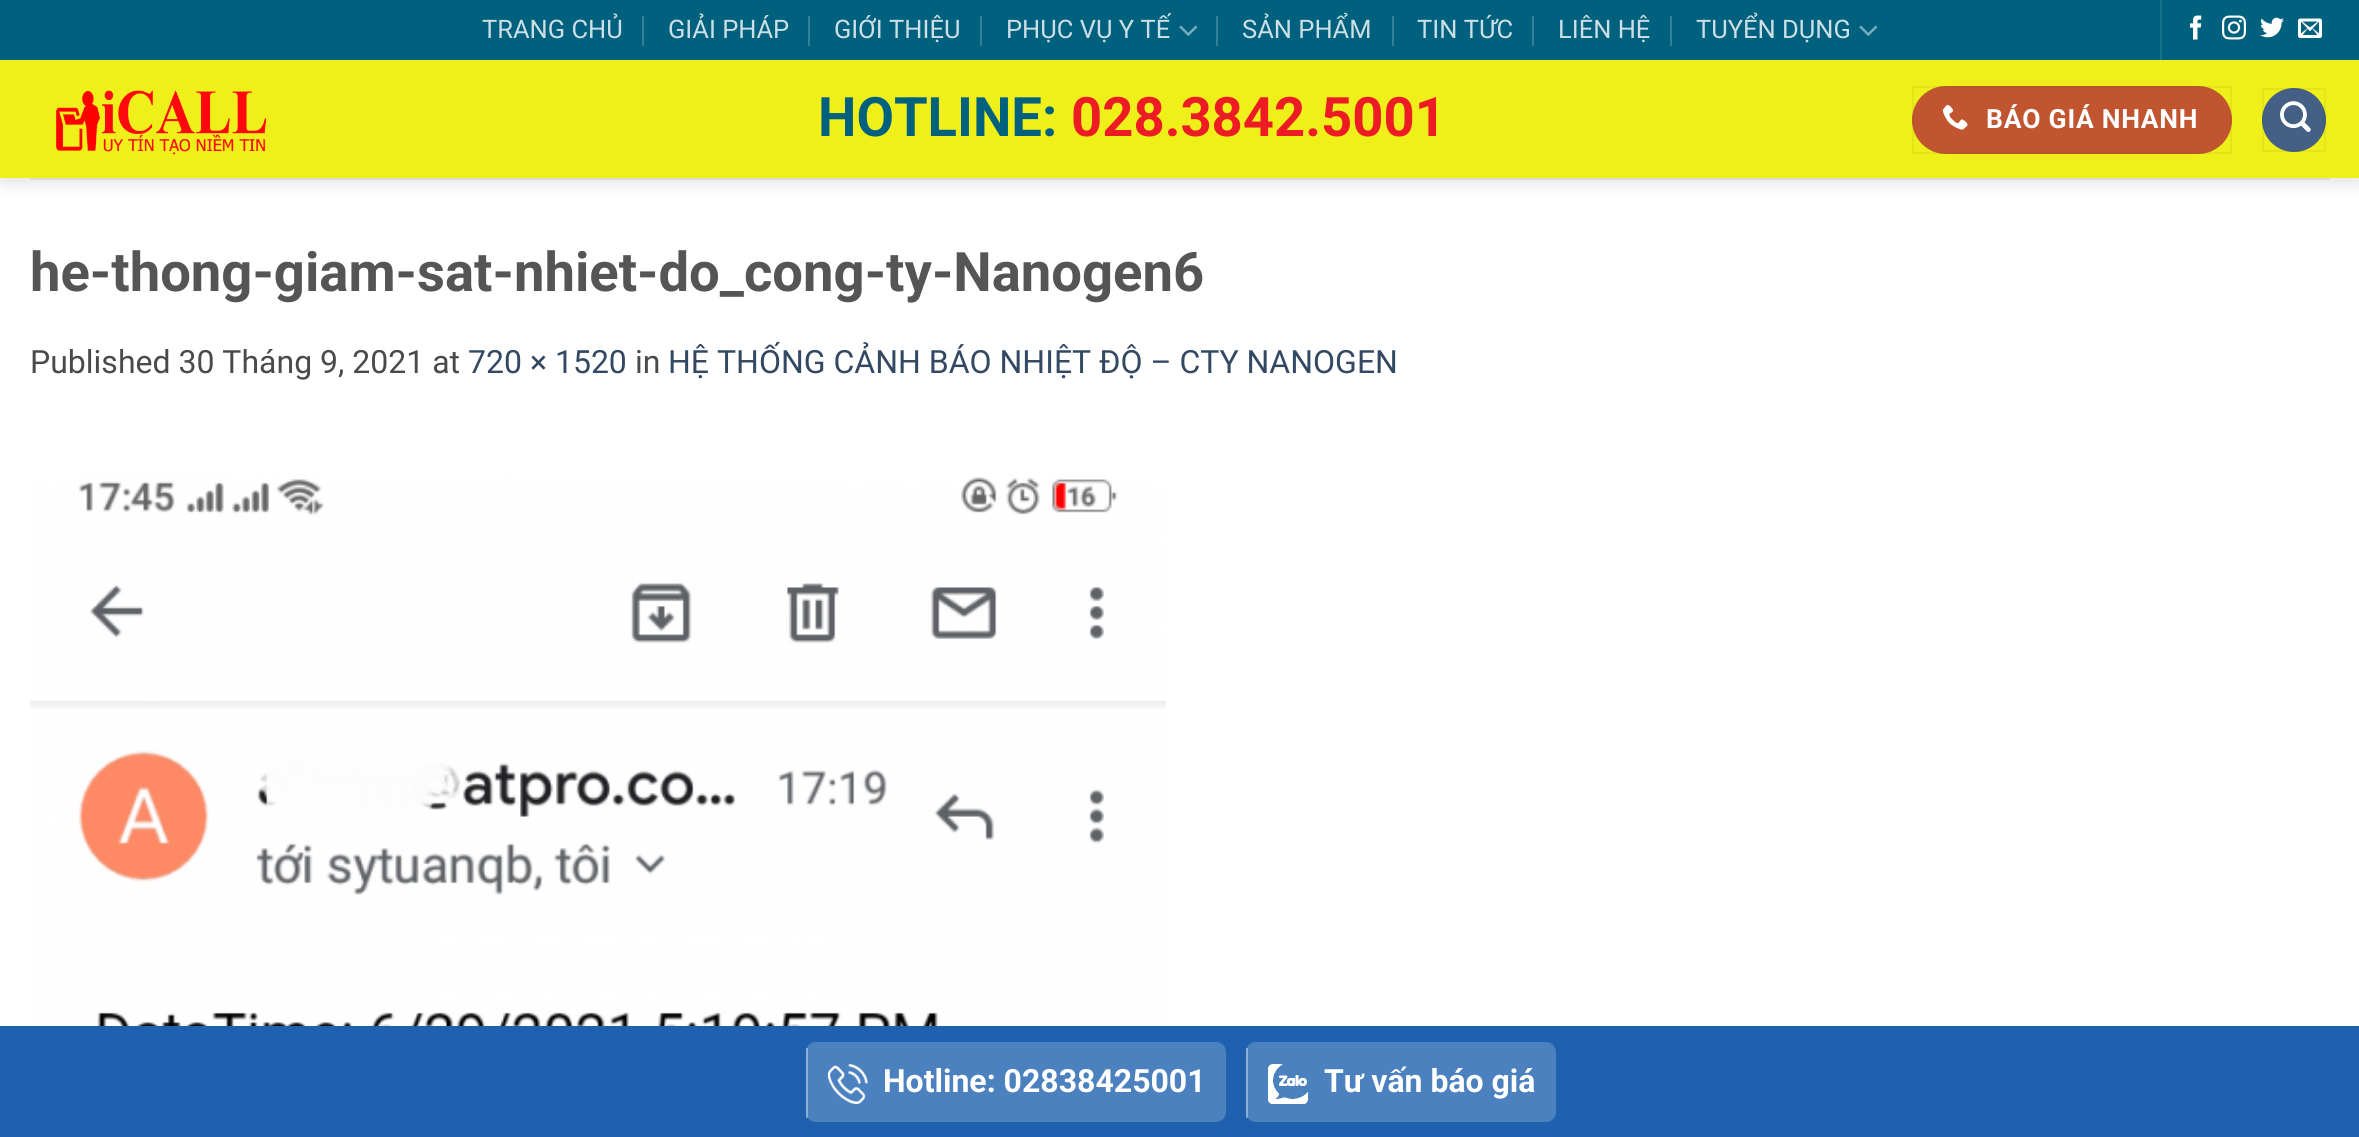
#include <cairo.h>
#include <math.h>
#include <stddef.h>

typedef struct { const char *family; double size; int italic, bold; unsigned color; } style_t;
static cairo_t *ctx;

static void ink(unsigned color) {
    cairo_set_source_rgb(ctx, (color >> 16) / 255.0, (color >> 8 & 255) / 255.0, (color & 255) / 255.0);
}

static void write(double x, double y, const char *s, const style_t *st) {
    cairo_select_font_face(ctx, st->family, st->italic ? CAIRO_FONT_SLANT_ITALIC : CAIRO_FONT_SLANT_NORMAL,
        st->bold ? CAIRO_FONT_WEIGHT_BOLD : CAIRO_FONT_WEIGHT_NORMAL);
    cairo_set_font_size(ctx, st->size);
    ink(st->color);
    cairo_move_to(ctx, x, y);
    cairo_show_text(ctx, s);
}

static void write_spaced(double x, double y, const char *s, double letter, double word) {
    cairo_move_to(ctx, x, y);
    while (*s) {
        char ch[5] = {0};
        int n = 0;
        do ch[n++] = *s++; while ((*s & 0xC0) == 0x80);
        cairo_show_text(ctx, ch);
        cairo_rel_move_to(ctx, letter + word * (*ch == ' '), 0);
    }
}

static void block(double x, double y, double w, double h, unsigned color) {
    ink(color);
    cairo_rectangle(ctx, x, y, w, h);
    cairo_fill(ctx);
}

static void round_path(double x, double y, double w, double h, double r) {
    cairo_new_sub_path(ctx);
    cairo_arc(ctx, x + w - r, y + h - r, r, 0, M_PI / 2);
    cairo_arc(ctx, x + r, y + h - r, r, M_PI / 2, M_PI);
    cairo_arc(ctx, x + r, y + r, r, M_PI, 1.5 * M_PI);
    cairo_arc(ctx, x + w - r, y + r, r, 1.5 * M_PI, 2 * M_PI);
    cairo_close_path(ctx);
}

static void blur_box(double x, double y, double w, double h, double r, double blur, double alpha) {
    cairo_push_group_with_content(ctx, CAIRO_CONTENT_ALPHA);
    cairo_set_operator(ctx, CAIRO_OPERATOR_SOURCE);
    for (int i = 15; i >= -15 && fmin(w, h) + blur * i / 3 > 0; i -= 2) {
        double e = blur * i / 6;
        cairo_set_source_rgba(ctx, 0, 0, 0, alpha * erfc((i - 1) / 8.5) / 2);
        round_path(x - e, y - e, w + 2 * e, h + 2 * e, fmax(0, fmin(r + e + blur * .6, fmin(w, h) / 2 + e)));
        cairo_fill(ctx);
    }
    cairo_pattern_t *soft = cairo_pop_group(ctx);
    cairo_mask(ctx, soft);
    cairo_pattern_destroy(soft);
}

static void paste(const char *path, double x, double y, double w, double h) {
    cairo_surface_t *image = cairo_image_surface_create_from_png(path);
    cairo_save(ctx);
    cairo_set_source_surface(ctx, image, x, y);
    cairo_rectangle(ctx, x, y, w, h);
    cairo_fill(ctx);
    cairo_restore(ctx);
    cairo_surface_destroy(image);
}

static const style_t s1 = {"Roboto", 25.5, 0, 0, 0xccdfe5};
static const style_t s2 = {"Roboto", 54.4, 0, 1, 0x00617f};
static const style_t s3 = {"Roboto", 54.4, 0, 1, 0xed1c24};
static const style_t s4 = {"Roboto", 54.4, 0, 1, 0x555555};
static const style_t s5 = {"Roboto", 32, 0, 0, 0x4a4a4a};
static const style_t s6 = {"Roboto", 32, 0, 0, 0x334862};
static const style_t s7 = {"Roboto", 32, 0, 1, 0xffffff};

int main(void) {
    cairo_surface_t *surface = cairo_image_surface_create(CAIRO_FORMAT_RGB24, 2359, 1137);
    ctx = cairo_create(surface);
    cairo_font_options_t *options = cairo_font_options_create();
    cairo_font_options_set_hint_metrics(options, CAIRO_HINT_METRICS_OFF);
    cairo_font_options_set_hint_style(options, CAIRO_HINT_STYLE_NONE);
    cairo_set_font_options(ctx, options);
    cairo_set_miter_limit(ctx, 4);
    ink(0xffffff);
    cairo_paint(ctx);
    ink(0x000000);
    blur_box(2, 2, 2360, 178, 0, 10, 0.15);
    block(0, 0, 2359, 60, 0x00617f);
    write(482, 38, "TRANG CHỦ", &s1);
    block(642, 16, 2, 30, 0x338199);
    write(668, 38, "GIẢI PHÁP", &s1);
    block(808, 16, 2, 30, 0x338199);
    write(834, 38, "GIỚI THIỆU", &s1);
    block(980, 16, 2, 30, 0x338199);
    write(1006, 38, "PHỤC VỤ Y TẾ", &s1);
    paste("pic1.png", 1179, 25, 19, 11);
    block(1216, 16, 2, 30, 0x338199);
    write(1242, 38, "SẢN PHẨM", &s1);
    block(1392, 16, 2, 30, 0x338199);
    write(1417, 38, "TIN TỨC", &s1);
    block(1532, 16, 2, 30, 0x338199);
    write(1558, 38, "LIÊN HỆ", &s1);
    block(1670, 16, 2, 30, 0x338199);
    write(1696, 38, "TUYỂN DỤNG", &s1);
    paste("pic1.png", 1859, 25, 19, 11);
    block(2160, 0, 2, 60, 0x1a718c);
    paste("pic2.png", 2190, 15, 12, 25);
    paste("pic3.png", 2222, 15, 24, 25);
    paste("pic4.png", 2260, 17, 24, 21);
    paste("pic5.png", 2298, 18, 24, 20);
    block(0, 60, 2359, 118, 0xefef1a);
    paste("pic6.png", 56, 90, 211, 65);
    write(818, 136, "HOTLINE:", &s2);
    write(1071, 136, "028.3842.5001", &s3);
    ink(0xc05530);
    round_path(1912, 86, 320, 68, 34);
    cairo_fill(ctx);
    cairo_rectangle(ctx, 1913, 87, 318, 66);
    cairo_set_source_rgba(ctx, 0, 0, 0, 0.05);
    cairo_stroke(ctx);
    paste("pic7.png", 1942, 104, 26, 26);
    cairo_set_font_size(ctx, 26.5);
    ink(0xffffff);
    write_spaced(1986, 128, "BÁO GIÁ NHANH", 0.75, 0);
    ink(0x446084);
    cairo_new_path(ctx);
    cairo_arc(ctx, 2294, 120, 32, 0, 2 * M_PI);
    cairo_fill(ctx);
    cairo_rectangle(ctx, 2263, 89, 62, 62);
    cairo_set_source_rgba(ctx, 0, 0, 0, 0.05);
    cairo_stroke(ctx);
    paste("pic8.png", 2280, 101, 31, 31);
    block(30, 178, 2300, 2, 0xdadada);
    write(30, 291, "he-thong-giam-sat-nhiet-do_cong-ty-Nanogen6", &s4);
    write(30, 373, "Published 30 Tháng 9, 2021 at", &s5);
    write(468, 373, "720 × 1520", &s6);
    write(635, 373, "in", &s5);
    write(668, 373, "HỆ THỐNG CẢNH BÁO NHIỆT ĐỘ – CTY NANOGEN", &s6);
    paste("pic9.png", 30, 477, 1136, 549);
    block(0, 1026, 2359, 111, 0x1f61af);
    ink(0x4c81bf);
    round_path(806, 1042, 420, 80, 10);
    cairo_fill(ctx);
    cairo_set_source_rgba(ctx, 1, 1, 1, 0.38);
    cairo_rectangle(ctx, 806, 1048, 2, 70);
    cairo_fill(ctx);
    paste("pic10.png", 827, 1064, 41, 40);
    write(883, 1092, "Hotline: 02838425001", &s7);
    ink(0x4c81bf);
    round_path(1246, 1042, 310, 80, 10);
    cairo_fill(ctx);
    cairo_set_source_rgba(ctx, 1, 1, 1, 0.38);
    cairo_rectangle(ctx, 1246, 1048, 2, 70);
    cairo_fill(ctx);
    paste("pic11.png", 1268, 1064, 40, 40);
    write(1324, 1092, "Tư vấn báo giá", &s7);
    cairo_surface_write_to_png(surface, "screenshot.png");
    cairo_font_options_destroy(options);
    cairo_destroy(ctx);
    cairo_surface_destroy(surface);
    return 0;
}
